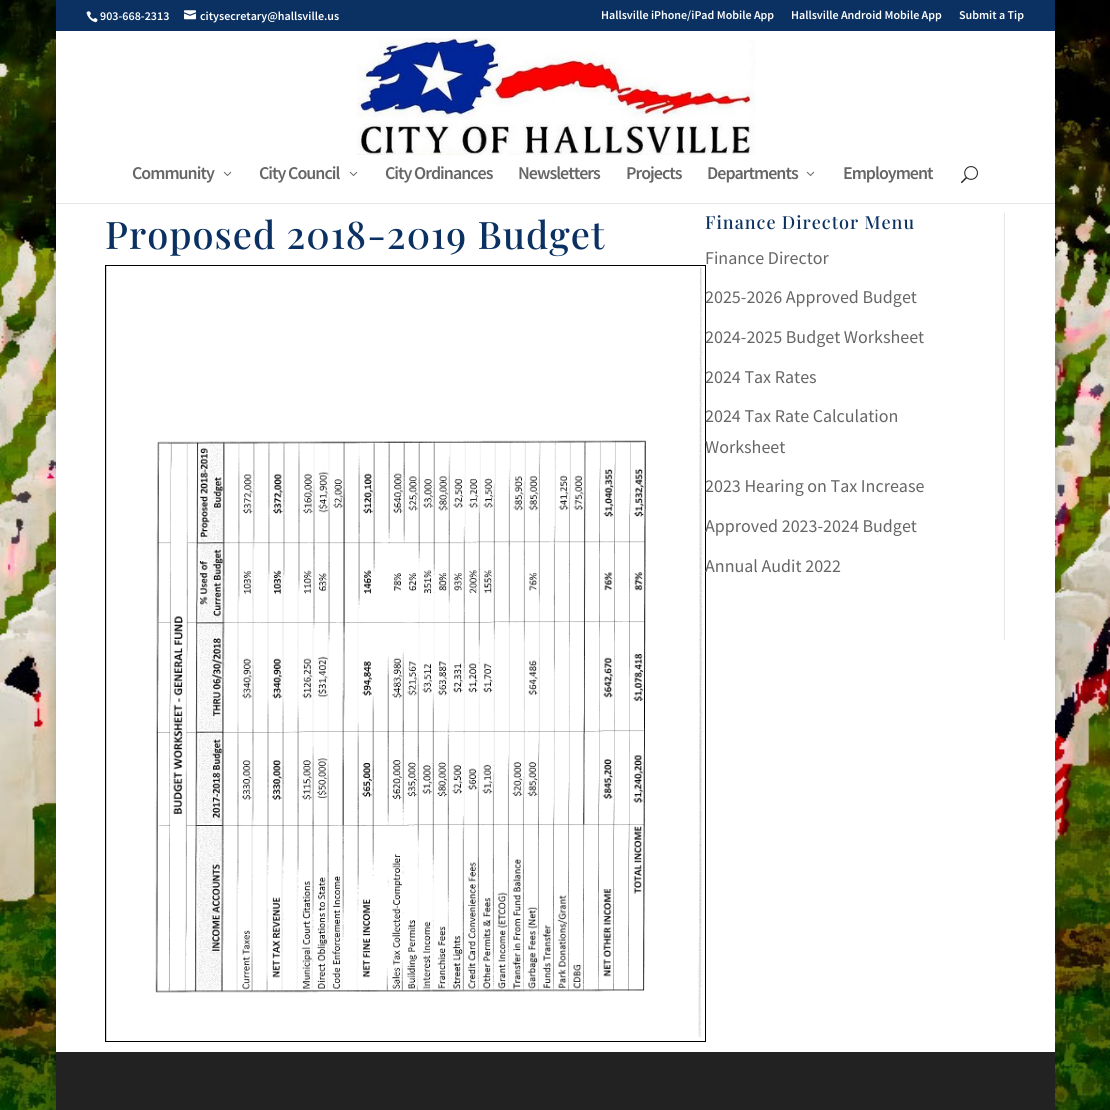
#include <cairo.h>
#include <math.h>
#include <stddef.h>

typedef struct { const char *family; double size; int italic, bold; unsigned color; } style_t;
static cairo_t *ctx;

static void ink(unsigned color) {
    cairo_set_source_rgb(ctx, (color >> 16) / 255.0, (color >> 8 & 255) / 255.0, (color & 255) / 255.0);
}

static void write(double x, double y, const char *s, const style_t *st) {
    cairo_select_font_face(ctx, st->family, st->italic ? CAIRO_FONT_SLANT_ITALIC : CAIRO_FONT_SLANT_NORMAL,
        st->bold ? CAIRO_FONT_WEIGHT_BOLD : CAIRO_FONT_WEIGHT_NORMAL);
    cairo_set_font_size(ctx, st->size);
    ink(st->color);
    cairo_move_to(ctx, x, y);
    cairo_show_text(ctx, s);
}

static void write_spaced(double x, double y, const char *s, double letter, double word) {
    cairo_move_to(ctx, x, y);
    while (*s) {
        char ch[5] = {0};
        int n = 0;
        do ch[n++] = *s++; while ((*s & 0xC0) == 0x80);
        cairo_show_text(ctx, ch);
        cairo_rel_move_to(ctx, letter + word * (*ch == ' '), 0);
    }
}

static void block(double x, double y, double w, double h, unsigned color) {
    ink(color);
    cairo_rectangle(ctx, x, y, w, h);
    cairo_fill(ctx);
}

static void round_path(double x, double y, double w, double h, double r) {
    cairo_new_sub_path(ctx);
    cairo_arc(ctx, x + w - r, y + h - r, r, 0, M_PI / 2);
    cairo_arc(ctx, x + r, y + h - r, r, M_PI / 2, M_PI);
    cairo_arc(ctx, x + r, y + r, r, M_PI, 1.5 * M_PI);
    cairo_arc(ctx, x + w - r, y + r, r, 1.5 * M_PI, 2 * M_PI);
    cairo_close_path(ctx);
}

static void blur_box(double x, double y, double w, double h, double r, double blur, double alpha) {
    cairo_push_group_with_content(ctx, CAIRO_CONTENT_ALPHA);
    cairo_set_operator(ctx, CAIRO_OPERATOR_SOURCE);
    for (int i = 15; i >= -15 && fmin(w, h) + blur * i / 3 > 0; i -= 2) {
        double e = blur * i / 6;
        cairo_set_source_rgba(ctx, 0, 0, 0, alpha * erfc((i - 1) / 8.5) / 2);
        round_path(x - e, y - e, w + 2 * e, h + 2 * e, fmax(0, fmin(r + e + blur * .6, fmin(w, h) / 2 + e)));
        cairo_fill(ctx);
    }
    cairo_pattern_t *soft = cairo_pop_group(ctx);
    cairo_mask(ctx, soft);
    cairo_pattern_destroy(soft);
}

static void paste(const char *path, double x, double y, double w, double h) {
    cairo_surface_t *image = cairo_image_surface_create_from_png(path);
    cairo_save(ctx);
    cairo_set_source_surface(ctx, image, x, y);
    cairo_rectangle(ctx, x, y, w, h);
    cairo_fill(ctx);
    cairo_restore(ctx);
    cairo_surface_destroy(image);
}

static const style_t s1 = {"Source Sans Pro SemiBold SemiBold", 12, 0, 0, 0xffffff};
static const style_t s2 = {"Source Sans Pro", 18, 0, 0, 0x666666};

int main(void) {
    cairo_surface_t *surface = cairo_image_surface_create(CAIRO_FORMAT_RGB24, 1110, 1110);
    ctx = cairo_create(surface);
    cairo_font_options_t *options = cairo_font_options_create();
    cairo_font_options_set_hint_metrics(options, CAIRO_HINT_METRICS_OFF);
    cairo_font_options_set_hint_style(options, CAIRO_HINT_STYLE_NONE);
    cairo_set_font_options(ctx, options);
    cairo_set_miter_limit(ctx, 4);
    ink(0xffffff);
    cairo_paint(ctx);
    paste("pic1.png", 0, 0, 1110, 1110);
    ink(0x000000);
    blur_box(56, 0, 999, 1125, 0, 5, 0.2);
    block(56, 0, 999, 31, 0x0a3161);
    paste("pic2.png", 86, 11, 12, 12);
    write(100, 20, "903-668-2313", &s1);
    paste("pic3.png", 184, 10, 12, 10);
    write(200, 20, "citysecretary@hallsville.us", &s1);
    write(601, 19, "Hallsville iPhone/iPad Mobile App", &s1);
    write(791, 19, "Hallsville Android Mobile App", &s1);
    write(959, 19, "Submit a Tip", &s1);
    block(56, 203, 999, 1, 0xe6e6e6);
    block(56, 31, 999, 172, 0xffffff);
    paste("pic4.png", 357, 38, 398, 117);
    cairo_set_font_size(ctx, 18);
    ink(0x666666);
    write_spaced(132, 179, "Community", -1, 0);
    paste("pic5.png", 223, 171, 9, 5);
    write_spaced(259, 179, "City Council", -1, 0);
    paste("pic5.png", 349, 171, 9, 5);
    write_spaced(385, 179, "City Ordinances", -1, 0);
    write_spaced(518, 179, "Newsletters", -1, 0);
    write_spaced(626, 179, "Projects", -1, 0);
    write_spaced(707, 179, "Departments", -1, 0);
    paste("pic5.png", 806, 171, 9, 5);
    write_spaced(843, 179, "Employment", -1, 0);
    paste("pic6.png", 961, 166, 17, 18);
    block(56, 204, 999, 848, 0xffffff);
    cairo_select_font_face(ctx, "Playfair Display Medium", CAIRO_FONT_SLANT_NORMAL, CAIRO_FONT_WEIGHT_NORMAL);
    cairo_set_font_size(ctx, 38);
    ink(0x0a3161);
    write_spaced(105, 249, "Proposed 2018-2019 Budget", 1, 0);
    block(106, 266, 1, 775, 0xd3d3d3);
    cairo_rectangle(ctx, 105.5, 265.5, 600, 776);
    ink(0x000000);
    cairo_set_line_width(ctx, 1);
    cairo_stroke(ctx);
    paste("pic7.png", 107, 267, 596, 771);
    block(1004, 213, 1, 427, 0xe6e6e6);
    cairo_set_font_size(ctx, 18);
    ink(0x0a3161);
    write_spaced(705, 229, "Finance Director Menu", 1, 0);
    write(705, 264, "Finance Director", &s2);
    write(705, 303, "2025-2026 Approved Budget", &s2);
    write(705, 343, "2024-2025 Budget Worksheet", &s2);
    write(705, 383, "2024 Tax Rates", &s2);
    write(705, 422, "2024 Tax Rate Calculation", &s2);
    write(705, 453, "Worksheet", &s2);
    write(705, 492, "2023 Hearing on Tax Increase", &s2);
    write(705, 532, "Approved 2023-2024 Budget", &s2);
    write(705, 572, "Annual Audit 2022", &s2);
    block(56, 1052, 999, 58, 0x222222);
    cairo_surface_write_to_png(surface, "screenshot.png");
    cairo_font_options_destroy(options);
    cairo_destroy(ctx);
    cairo_surface_destroy(surface);
    return 0;
}
